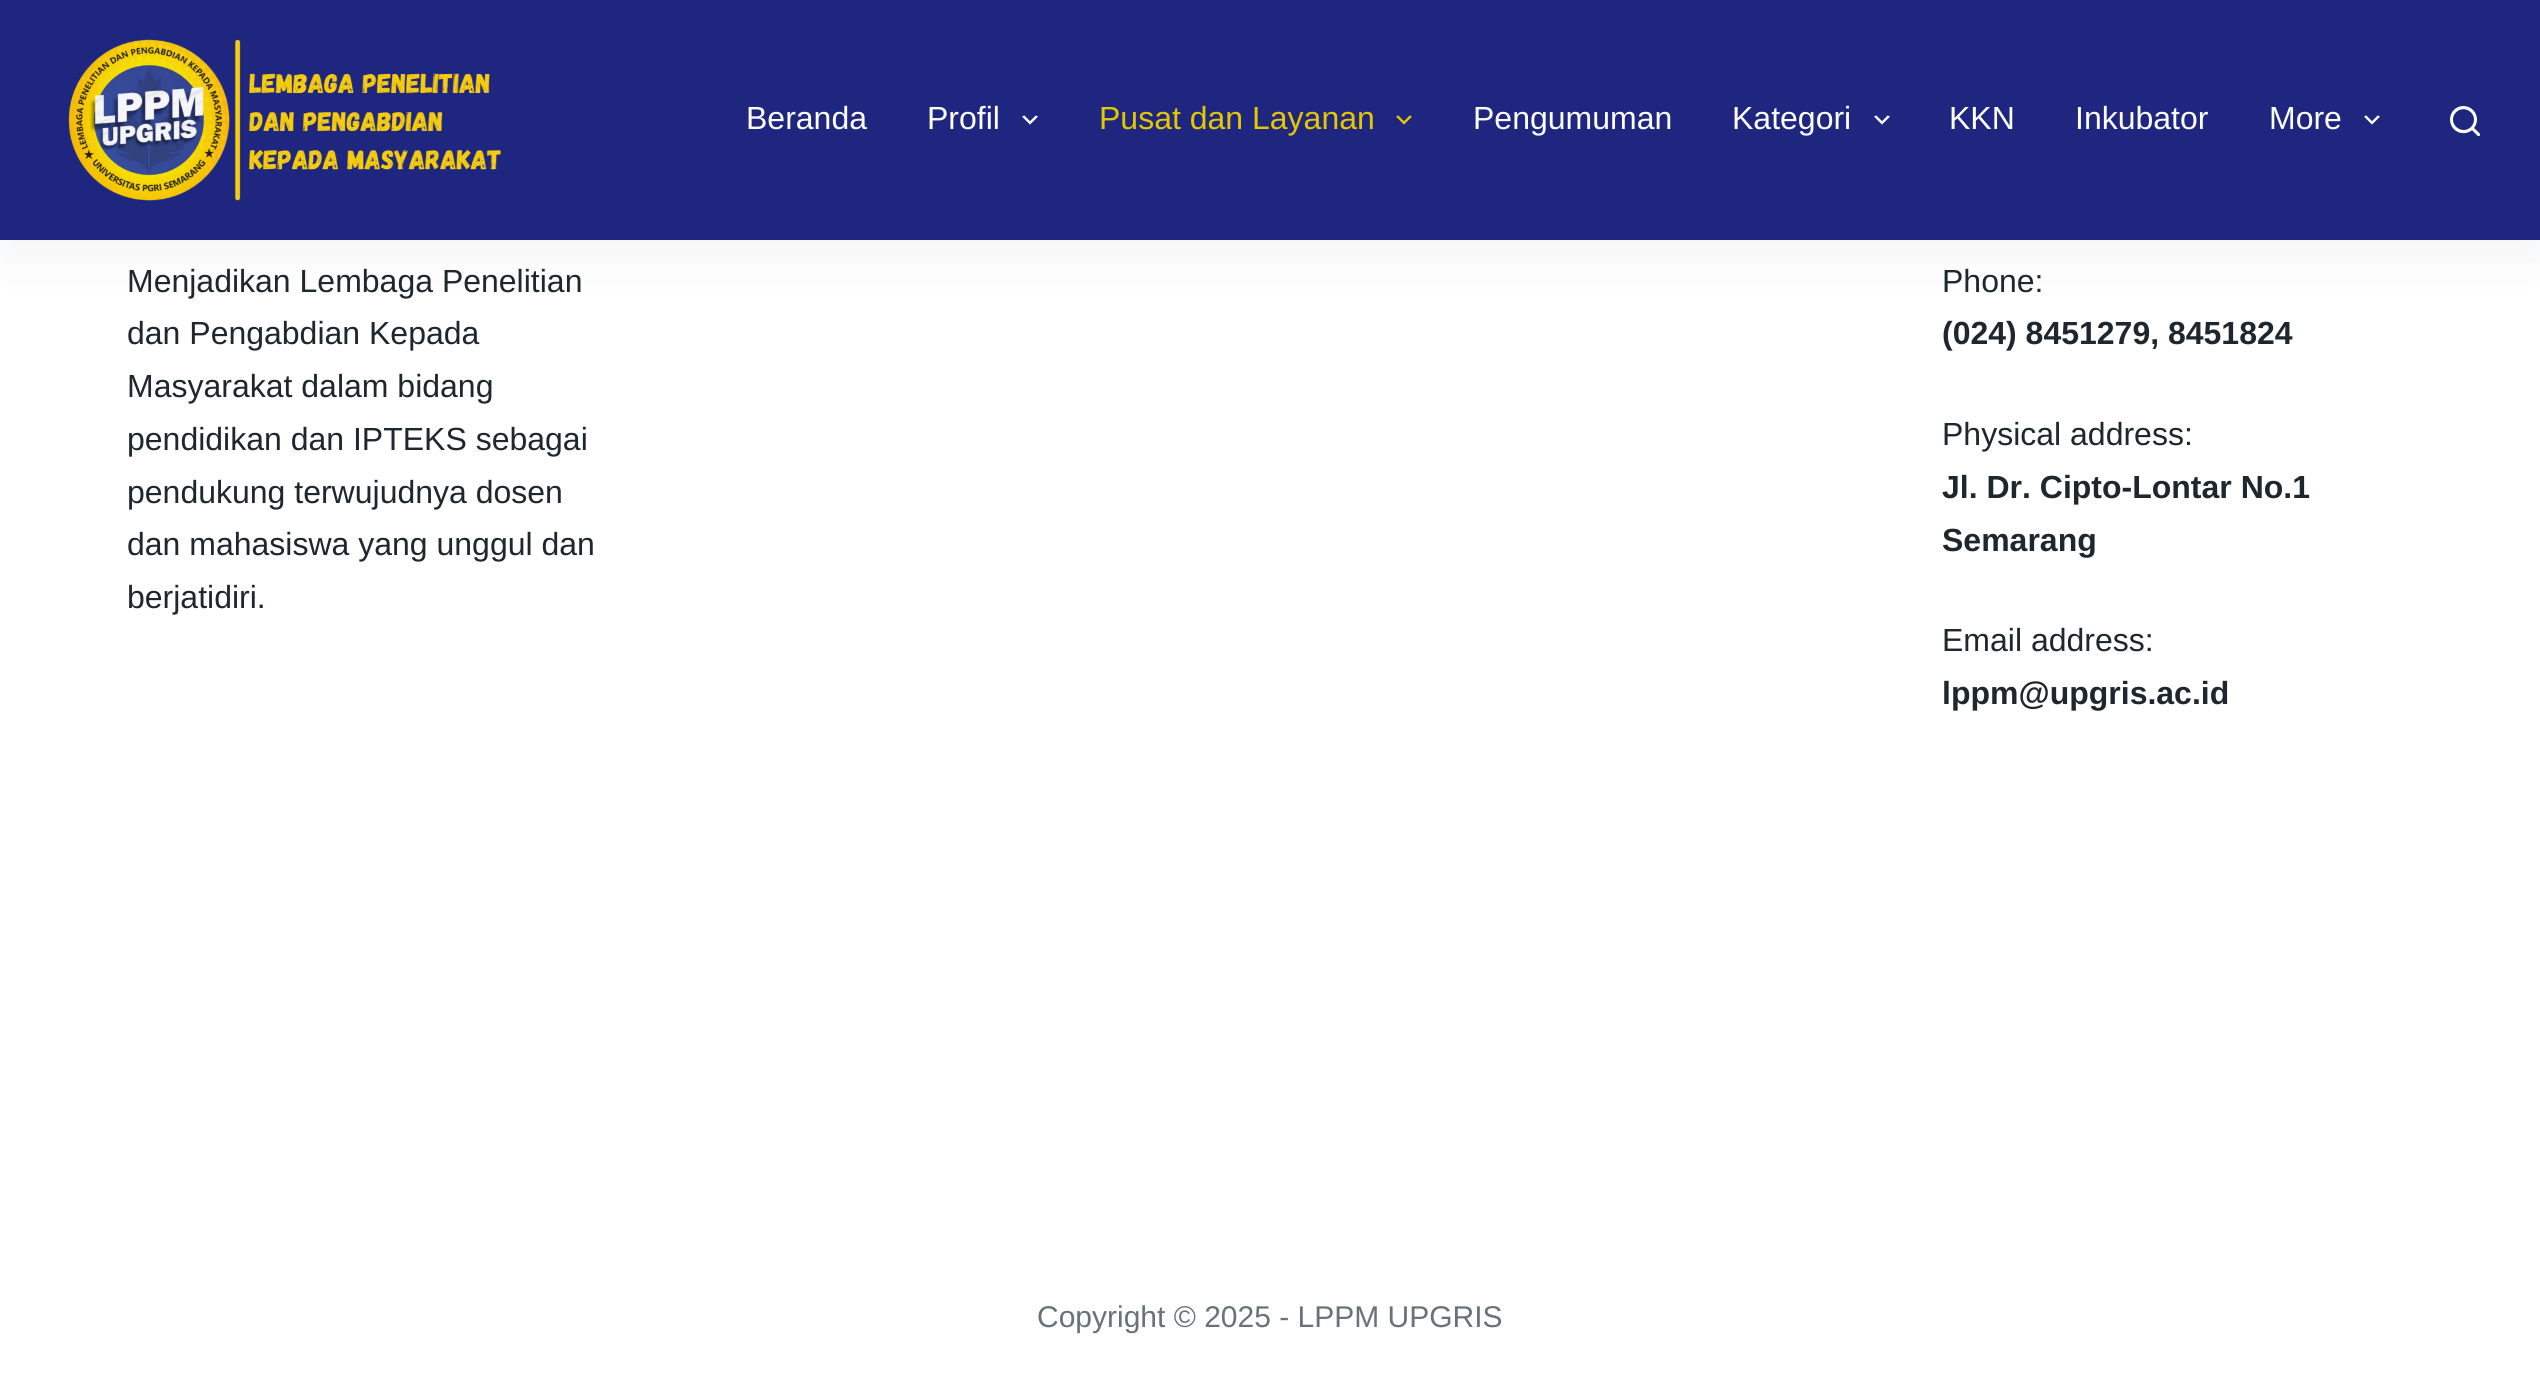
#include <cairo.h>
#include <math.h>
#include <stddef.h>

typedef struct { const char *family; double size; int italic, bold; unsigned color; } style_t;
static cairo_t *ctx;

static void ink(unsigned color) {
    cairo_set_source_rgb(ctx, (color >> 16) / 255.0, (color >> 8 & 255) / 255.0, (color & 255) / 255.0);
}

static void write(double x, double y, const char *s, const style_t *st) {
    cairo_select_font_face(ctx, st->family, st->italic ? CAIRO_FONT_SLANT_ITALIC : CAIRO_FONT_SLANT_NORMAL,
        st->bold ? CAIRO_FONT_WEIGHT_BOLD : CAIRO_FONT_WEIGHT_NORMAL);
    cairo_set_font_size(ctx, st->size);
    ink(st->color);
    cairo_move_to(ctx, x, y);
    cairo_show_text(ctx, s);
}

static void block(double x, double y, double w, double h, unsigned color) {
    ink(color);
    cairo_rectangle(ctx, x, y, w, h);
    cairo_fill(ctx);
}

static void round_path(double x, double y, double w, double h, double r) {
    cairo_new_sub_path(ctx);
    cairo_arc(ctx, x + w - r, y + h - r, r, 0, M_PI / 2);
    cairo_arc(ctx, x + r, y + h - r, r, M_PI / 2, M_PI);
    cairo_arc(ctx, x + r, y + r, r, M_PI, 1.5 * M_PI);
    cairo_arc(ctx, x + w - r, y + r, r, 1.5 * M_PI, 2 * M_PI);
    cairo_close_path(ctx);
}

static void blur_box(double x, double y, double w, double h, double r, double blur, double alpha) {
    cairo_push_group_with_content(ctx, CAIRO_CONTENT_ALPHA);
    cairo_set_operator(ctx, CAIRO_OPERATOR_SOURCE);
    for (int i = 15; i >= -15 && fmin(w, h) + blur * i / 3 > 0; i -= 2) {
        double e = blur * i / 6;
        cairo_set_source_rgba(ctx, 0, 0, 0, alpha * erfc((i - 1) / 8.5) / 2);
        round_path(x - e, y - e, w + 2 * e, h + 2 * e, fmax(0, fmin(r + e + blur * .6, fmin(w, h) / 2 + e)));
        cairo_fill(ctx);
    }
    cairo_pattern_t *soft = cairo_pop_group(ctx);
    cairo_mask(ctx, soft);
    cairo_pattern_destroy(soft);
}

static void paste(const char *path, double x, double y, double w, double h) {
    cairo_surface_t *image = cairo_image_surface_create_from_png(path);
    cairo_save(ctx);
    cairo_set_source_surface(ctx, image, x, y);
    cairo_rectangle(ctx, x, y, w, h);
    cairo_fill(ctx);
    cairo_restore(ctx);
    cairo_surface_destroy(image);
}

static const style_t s1 = {"Liberation Sans", 32, 0, 0, 0xfdfefe};
static const style_t s2 = {"Liberation Sans", 32, 0, 0, 0xe3c800};
static const style_t s3 = {"Liberation Sans", 32, 0, 0, 0x1e262e};
static const style_t s4 = {"Liberation Sans", 32, 0, 1, 0x1e262e};
static const style_t s5 = {"Liberation Sans", 30, 0, 0, 0x687279};

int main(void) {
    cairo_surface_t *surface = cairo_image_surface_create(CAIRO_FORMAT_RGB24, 2540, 1386);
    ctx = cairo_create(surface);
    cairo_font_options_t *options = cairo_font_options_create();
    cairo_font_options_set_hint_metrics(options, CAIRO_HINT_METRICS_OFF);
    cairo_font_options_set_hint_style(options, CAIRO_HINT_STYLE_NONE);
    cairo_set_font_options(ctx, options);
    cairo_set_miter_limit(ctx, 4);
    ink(0xffffff);
    cairo_paint(ctx);
    ink(0x2c3e50);
    blur_box(0, 20, 2540, 240, 0, 20, 0.05);
    block(0, 0, 2540, 240, 0x1f2680);
    paste("pic1.png", 68, 39, 433, 162);
    write(746, 129, "Beranda", &s1);
    write(927, 129, "Profil", &s1);
    paste("pic2.png", 1022, 115, 16, 10);
    write(1099, 129, "Pusat dan Layanan", &s2);
    paste("pic3.png", 1396, 115, 16, 10);
    write(1473, 129, "Pengumuman", &s1);
    write(1732, 129, "Kategori", &s1);
    paste("pic2.png", 1874, 115, 16, 10);
    write(1949, 129, "KKN", &s1);
    write(2075, 129, "Inkubator", &s1);
    write(2269, 129, "More", &s1);
    paste("pic2.png", 2364, 115, 16, 10);
    paste("pic4.png", 2450, 106, 30, 30);
    write(127, 292, "Menjadikan Lembaga Penelitian", &s3);
    write(127, 344, "dan Pengabdian Kepada", &s3);
    write(127, 397, "Masyarakat dalam bidang", &s3);
    write(127, 450, "pendidikan dan IPTEKS sebagai", &s3);
    write(127, 503, "pendukung terwujudnya dosen", &s3);
    write(127, 555, "dan mahasiswa yang unggul dan", &s3);
    write(127, 608, "berjatidiri.", &s3);
    write(1942, 292, "Phone:", &s3);
    write(1942, 344, "(024) 8451279, 8451824", &s4);
    write(1942, 445, "Physical address:", &s3);
    write(1942, 498, "Jl. Dr. Cipto-Lontar No.1", &s4);
    write(1942, 551, "Semarang", &s4);
    write(1942, 651, "Email address:", &s3);
    write(1942, 704, "lppm@upgris.ac.id", &s4);
    write(1037, 1327, "Copyright © 2025 - LPPM UPGRIS", &s5);
    cairo_surface_write_to_png(surface, "screenshot.png");
    cairo_font_options_destroy(options);
    cairo_destroy(ctx);
    cairo_surface_destroy(surface);
    return 0;
}
